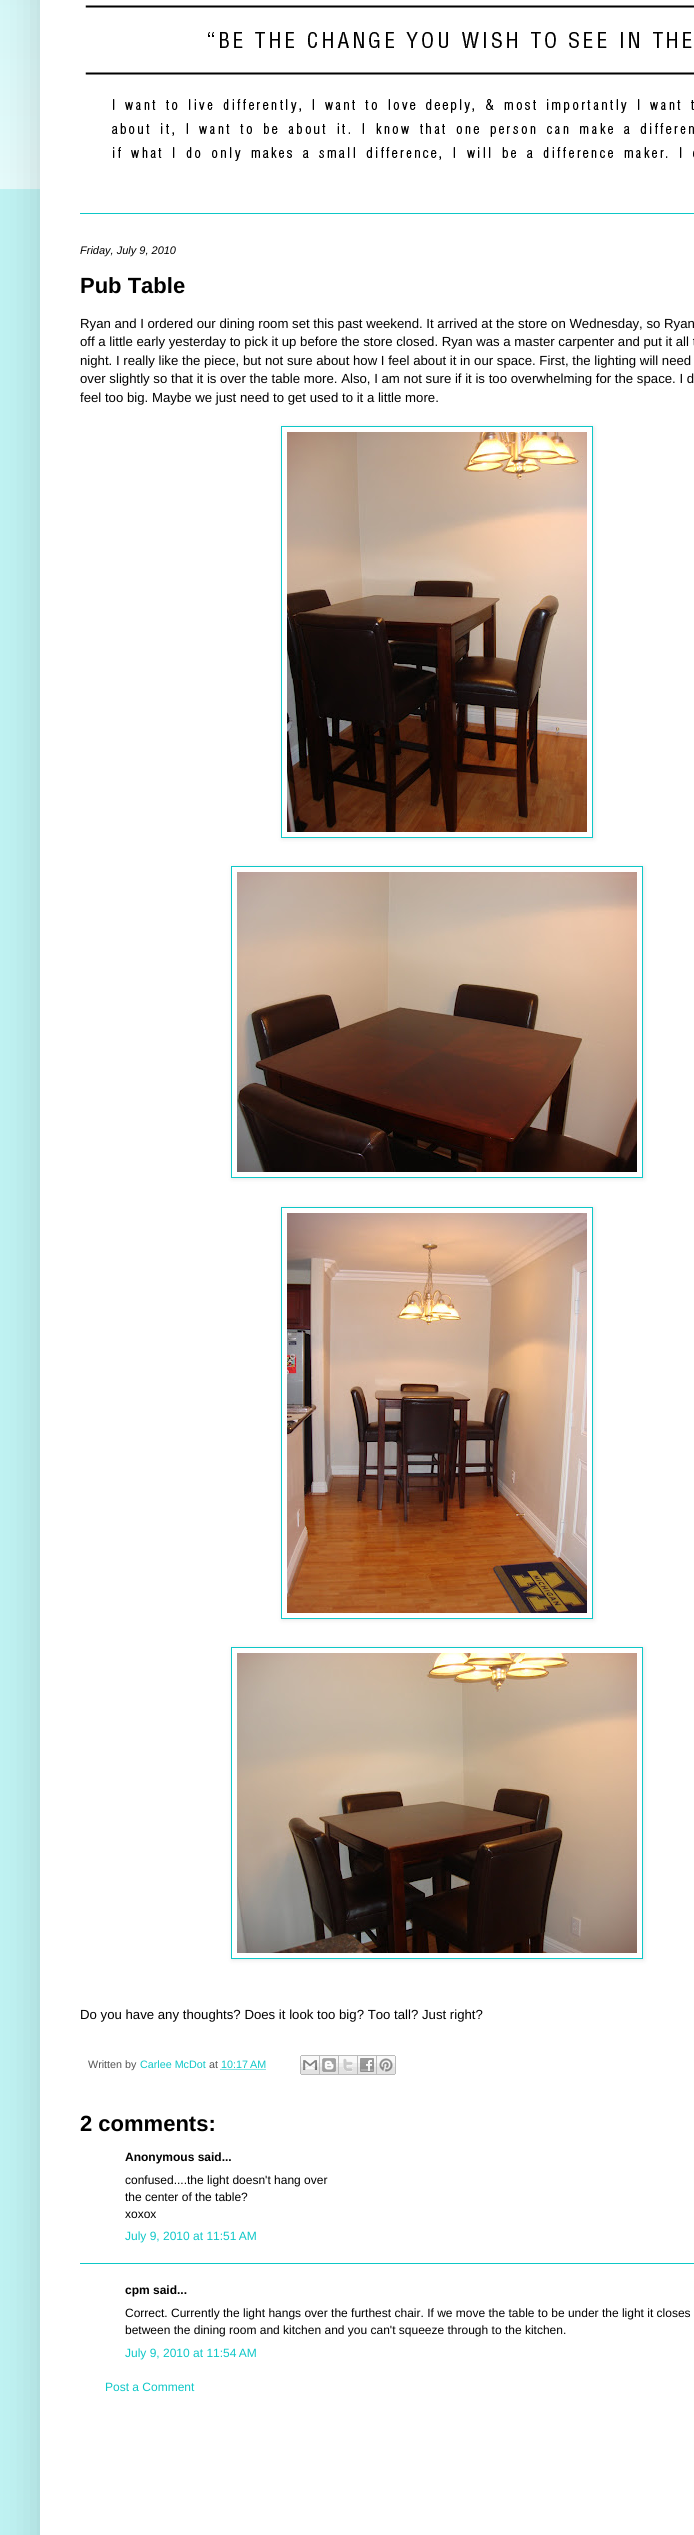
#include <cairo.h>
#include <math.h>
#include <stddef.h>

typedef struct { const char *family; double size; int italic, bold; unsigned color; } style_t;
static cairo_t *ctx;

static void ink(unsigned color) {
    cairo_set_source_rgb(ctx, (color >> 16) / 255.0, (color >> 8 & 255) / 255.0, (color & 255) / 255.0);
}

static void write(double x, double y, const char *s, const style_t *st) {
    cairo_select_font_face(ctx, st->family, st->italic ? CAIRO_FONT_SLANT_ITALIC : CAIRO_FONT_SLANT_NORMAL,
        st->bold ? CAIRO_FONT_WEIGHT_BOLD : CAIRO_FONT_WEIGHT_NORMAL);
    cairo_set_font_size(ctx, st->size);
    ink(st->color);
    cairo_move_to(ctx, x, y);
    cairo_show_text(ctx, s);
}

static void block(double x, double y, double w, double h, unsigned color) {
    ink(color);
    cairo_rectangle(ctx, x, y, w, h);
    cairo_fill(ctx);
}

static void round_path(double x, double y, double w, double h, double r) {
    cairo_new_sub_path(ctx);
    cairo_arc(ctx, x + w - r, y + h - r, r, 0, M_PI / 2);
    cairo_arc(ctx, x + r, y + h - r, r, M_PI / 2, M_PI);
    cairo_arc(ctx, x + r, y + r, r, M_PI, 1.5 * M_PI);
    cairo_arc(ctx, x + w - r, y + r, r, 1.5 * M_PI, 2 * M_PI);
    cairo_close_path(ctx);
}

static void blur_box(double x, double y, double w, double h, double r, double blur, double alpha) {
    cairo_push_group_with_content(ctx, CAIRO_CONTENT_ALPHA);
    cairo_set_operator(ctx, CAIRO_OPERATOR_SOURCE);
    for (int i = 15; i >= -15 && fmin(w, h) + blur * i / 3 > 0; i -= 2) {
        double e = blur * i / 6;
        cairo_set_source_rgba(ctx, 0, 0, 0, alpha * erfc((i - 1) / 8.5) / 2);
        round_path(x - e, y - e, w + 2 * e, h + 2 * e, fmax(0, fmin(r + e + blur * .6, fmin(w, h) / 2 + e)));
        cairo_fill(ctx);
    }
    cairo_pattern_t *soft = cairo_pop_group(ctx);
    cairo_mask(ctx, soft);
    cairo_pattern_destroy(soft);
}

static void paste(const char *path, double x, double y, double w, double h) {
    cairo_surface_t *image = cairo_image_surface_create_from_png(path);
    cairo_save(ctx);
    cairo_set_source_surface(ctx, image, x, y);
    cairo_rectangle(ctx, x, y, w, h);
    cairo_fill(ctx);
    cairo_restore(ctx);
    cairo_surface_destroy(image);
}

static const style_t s1 = {"Liberation Sans", 11, 1, 0, 0x000000};
static const style_t s2 = {"Liberation Sans", 22, 0, 1, 0x000000};
static const style_t s3 = {"Liberation Sans", 13.2, 0, 0, 0x000000};
static const style_t s4 = {"Liberation Sans", 10.75, 0, 0, 0x545454};
static const style_t s5 = {"Liberation Sans", 10.75, 0, 0, 0x0dc7c7};
static const style_t s6 = {"Liberation Sans", 12, 0, 1, 0x000000};
static const style_t s7 = {"Liberation Sans", 12, 0, 0, 0x000000};
static const style_t s8 = {"Liberation Sans", 12, 0, 0, 0x0dc7c7};

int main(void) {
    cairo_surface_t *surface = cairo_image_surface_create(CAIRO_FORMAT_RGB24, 694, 2535);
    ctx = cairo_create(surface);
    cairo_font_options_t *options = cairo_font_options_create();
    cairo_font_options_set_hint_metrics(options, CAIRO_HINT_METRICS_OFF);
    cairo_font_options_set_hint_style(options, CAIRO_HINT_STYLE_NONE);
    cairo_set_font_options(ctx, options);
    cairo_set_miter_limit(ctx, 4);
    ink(0xbff2f2);
    cairo_paint(ctx);
    paste("pic1.png", 0, 0, 40, 189);
    ink(0x000000);
    blur_box(40, -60, 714, 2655, 0, 20, 0.15);
    block(40, 0, 654, 2535, 0xffffff);
    paste("pic2.png", 85, 5, 609, 156);
    block(80, 213, 614, 1, 0x0dc7c7);
    write(80, 254, "Friday, July 9, 2010", &s1);
    write(80, 293, "Pub Table", &s2);
    write(80, 328, "Ryan and I ordered our dining room set this past weekend. It arrived at the store on Wednesday, so Ryan", &s3);
    write(80, 346, "off a little early yesterday to pick it up before the store closed. Ryan was a master carpenter and put it all t", &s3);
    write(80, 365, "night. I really like the piece, but not sure about how I feel about it in our space. First, the lighting will need", &s3);
    write(80, 383, "over slightly so that it is over the table more. Also, I am not sure if it is too overwhelming for the space. I d", &s3);
    write(80, 402, "feel too big. Maybe we just need to get used to it a little more.", &s3);
    cairo_save(ctx);
    cairo_set_fill_rule(ctx, CAIRO_FILL_RULE_EVEN_ODD);
    cairo_new_path(ctx);
    cairo_move_to(ctx, 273, 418);
    cairo_line_to(ctx, 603, 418);
    cairo_line_to(ctx, 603, 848);
    cairo_line_to(ctx, 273, 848);
    cairo_close_path(ctx);
    cairo_move_to(ctx, 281, 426);
    cairo_line_to(ctx, 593, 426);
    cairo_line_to(ctx, 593, 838);
    cairo_line_to(ctx, 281, 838);
    cairo_close_path(ctx);
    cairo_clip(ctx);
    ink(0x000000);
    blur_box(282, 427, 312, 412, 0, 2.5, 0.1);
    cairo_restore(ctx);
    cairo_rectangle(ctx, 281.5, 426.5, 311, 411);
    ink(0x0dc7c7);
    cairo_set_line_width(ctx, 1);
    cairo_stroke(ctx);
    paste("pic3.png", 287, 432, 300, 400);
    cairo_save(ctx);
    cairo_set_fill_rule(ctx, CAIRO_FILL_RULE_EVEN_ODD);
    cairo_new_path(ctx);
    cairo_move_to(ctx, 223, 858);
    cairo_line_to(ctx, 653, 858);
    cairo_line_to(ctx, 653, 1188);
    cairo_line_to(ctx, 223, 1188);
    cairo_close_path(ctx);
    cairo_move_to(ctx, 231, 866);
    cairo_line_to(ctx, 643, 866);
    cairo_line_to(ctx, 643, 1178);
    cairo_line_to(ctx, 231, 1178);
    cairo_close_path(ctx);
    cairo_clip(ctx);
    ink(0x000000);
    blur_box(232, 867, 412, 312, 0, 2.5, 0.1);
    cairo_restore(ctx);
    cairo_rectangle(ctx, 231.5, 866.5, 411, 311);
    cairo_stroke(ctx);
    paste("pic4.png", 237, 872, 400, 300);
    cairo_save(ctx);
    cairo_set_fill_rule(ctx, CAIRO_FILL_RULE_EVEN_ODD);
    cairo_new_path(ctx);
    cairo_move_to(ctx, 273, 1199);
    cairo_line_to(ctx, 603, 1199);
    cairo_line_to(ctx, 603, 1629);
    cairo_line_to(ctx, 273, 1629);
    cairo_close_path(ctx);
    cairo_move_to(ctx, 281, 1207);
    cairo_line_to(ctx, 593, 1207);
    cairo_line_to(ctx, 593, 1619);
    cairo_line_to(ctx, 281, 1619);
    cairo_close_path(ctx);
    cairo_clip(ctx);
    ink(0x000000);
    blur_box(282, 1208, 312, 412, 0, 2.5, 0.1);
    cairo_restore(ctx);
    cairo_rectangle(ctx, 281.5, 1207.5, 311, 411);
    cairo_stroke(ctx);
    paste("pic5.png", 287, 1213, 300, 400);
    cairo_save(ctx);
    cairo_set_fill_rule(ctx, CAIRO_FILL_RULE_EVEN_ODD);
    cairo_new_path(ctx);
    cairo_move_to(ctx, 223, 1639);
    cairo_line_to(ctx, 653, 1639);
    cairo_line_to(ctx, 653, 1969);
    cairo_line_to(ctx, 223, 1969);
    cairo_close_path(ctx);
    cairo_move_to(ctx, 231, 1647);
    cairo_line_to(ctx, 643, 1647);
    cairo_line_to(ctx, 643, 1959);
    cairo_line_to(ctx, 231, 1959);
    cairo_close_path(ctx);
    cairo_clip(ctx);
    ink(0x000000);
    blur_box(232, 1648, 412, 312, 0, 2.5, 0.1);
    cairo_restore(ctx);
    cairo_rectangle(ctx, 231.5, 1647.5, 411, 311);
    cairo_stroke(ctx);
    paste("pic6.png", 237, 1653, 400, 300);
    write(80, 2019, "Do you have any thoughts? Does it look too big? Too tall? Just right?", &s3);
    write(88, 2068, "Written by", &s4);
    write(140, 2068, "Carlee McDot", &s5);
    write(209, 2068, "at", &s4);
    write(221, 2068, "10:17 AM", &s5);
    cairo_new_path(ctx);
    cairo_move_to(ctx, 220.5, 2069.5);
    cairo_line_to(ctx, 266, 2069.5);
    cairo_set_dash(ctx, (double[]){1, 1}, 2, 0);
    cairo_stroke(ctx);
    paste("pic7.png", 300, 2055, 20, 20);
    paste("pic8.png", 320, 2055, 19, 20);
    paste("pic9.png", 339, 2055, 19, 20);
    paste("pic10.png", 358, 2055, 19, 20);
    paste("pic11.png", 377, 2055, 19, 20);
    write(80, 2131, "2 comments:", &s2);
    write(125, 2161, "Anonymous said...", &s6);
    write(125, 2184, "confused....the light doesn't hang over", &s7);
    write(125, 2201, "the center of the table?", &s7);
    write(125, 2218, "xoxox", &s7);
    write(125, 2240, "July 9, 2010 at 11:51 AM", &s8);
    block(80, 2263, 614, 1, 0x0dc7c7);
    write(125, 2294, "cpm said...", &s6);
    write(125, 2317, "Correct. Currently the light hangs over the furthest chair. If we move the table to be under the light it closes", &s7);
    write(125, 2334, "between the dining room and kitchen and you can't squeeze through to the kitchen.", &s7);
    write(125, 2357, "July 9, 2010 at 11:54 AM", &s8);
    write(105, 2391, "Post a Comment", &s8);
    cairo_surface_write_to_png(surface, "screenshot.png");
    cairo_font_options_destroy(options);
    cairo_destroy(ctx);
    cairo_surface_destroy(surface);
    return 0;
}
